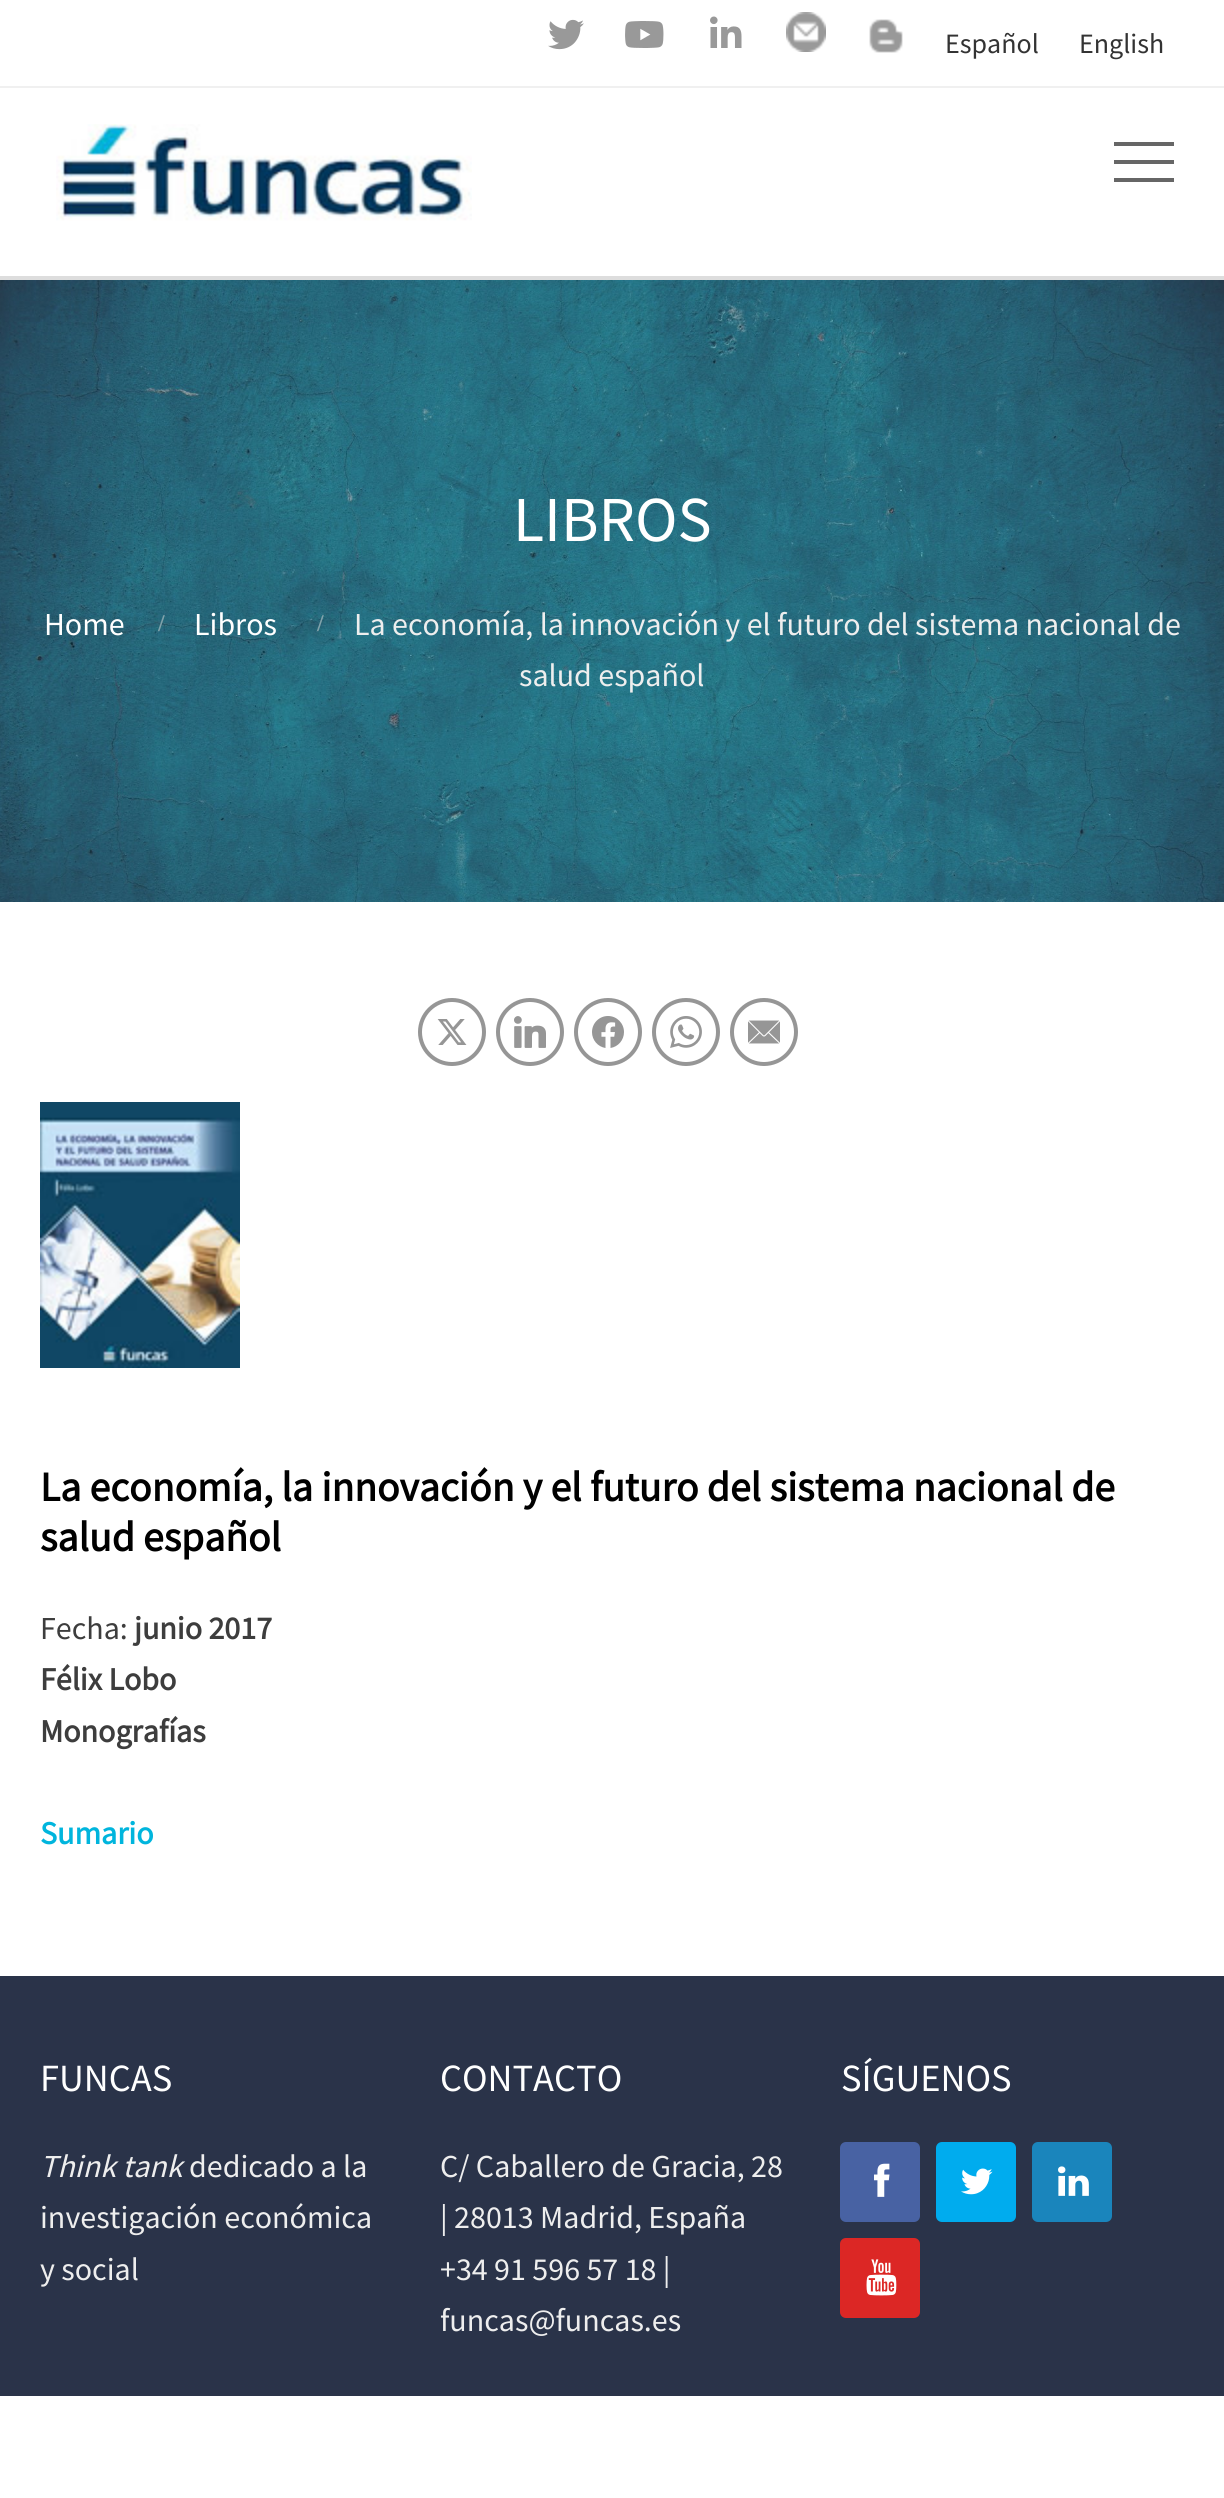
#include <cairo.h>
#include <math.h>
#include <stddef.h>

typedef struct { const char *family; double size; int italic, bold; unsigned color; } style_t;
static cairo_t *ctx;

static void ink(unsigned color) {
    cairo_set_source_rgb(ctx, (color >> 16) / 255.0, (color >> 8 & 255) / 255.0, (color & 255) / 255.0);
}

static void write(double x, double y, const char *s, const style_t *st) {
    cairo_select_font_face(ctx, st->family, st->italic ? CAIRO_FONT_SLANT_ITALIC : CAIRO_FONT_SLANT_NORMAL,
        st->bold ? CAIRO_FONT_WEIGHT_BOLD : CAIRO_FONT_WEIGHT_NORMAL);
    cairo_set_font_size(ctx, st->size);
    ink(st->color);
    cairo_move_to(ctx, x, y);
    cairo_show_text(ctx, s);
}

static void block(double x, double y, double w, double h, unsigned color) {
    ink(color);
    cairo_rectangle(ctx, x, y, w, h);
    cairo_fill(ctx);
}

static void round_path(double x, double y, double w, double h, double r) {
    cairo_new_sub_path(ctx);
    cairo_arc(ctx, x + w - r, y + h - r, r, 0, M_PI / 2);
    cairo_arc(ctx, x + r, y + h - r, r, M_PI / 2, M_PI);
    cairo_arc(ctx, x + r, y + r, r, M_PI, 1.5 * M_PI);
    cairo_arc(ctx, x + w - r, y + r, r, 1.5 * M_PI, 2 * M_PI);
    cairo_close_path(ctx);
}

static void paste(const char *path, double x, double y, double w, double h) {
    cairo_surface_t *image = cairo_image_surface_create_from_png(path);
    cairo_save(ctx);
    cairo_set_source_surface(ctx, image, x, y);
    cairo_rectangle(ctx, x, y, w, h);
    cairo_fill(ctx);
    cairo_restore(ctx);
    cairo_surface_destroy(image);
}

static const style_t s1 = {"Source Sans Pro", 28, 0, 0, 0x333333};
static const style_t s2 = {"Source Sans Pro", 64, 0, 0, 0xffffff};
static const style_t s3 = {"Source Sans Pro", 32, 0, 0, 0xffffff};
static const style_t s4 = {"Liberation Serif", 24, 0, 1, 0x81a2ab};
static const style_t s5 = {"Source Sans Pro", 32, 0, 0, 0xeeeeee};
static const style_t s6 = {"Source Sans Pro", 41.6, 0, 1, 0x000000};
static const style_t s7 = {"Source Sans Pro", 32, 0, 0, 0x3d3d3d};
static const style_t s8 = {"Source Sans Pro", 32, 0, 1, 0x3d3d3d};
static const style_t s9 = {"Source Sans Pro", 32, 0, 1, 0x00b5dd};
static const style_t s10 = {"Source Sans Pro", 38.5, 0, 0, 0xffffff};
static const style_t s11 = {"Source Sans Pro", 32, 1, 0, 0xeeeeee};

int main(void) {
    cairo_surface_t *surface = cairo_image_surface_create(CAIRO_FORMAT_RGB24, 1224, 2498);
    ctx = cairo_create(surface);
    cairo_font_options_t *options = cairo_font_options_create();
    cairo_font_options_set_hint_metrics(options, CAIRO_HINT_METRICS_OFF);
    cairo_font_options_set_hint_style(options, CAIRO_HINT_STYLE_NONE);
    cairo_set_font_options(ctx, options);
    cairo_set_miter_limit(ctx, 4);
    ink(0xffffff);
    cairo_paint(ctx);
    block(0, 86, 1224, 2, 0xf0f0f0);
    paste("pic1.png", 548, 19, 36, 31);
    paste("pic2.png", 625, 21, 39, 27);
    paste("pic3.png", 710, 16, 32, 32);
    paste("pic4.png", 786, 12, 40, 40);
    paste("pic5.png", 869, 19, 34, 34);
    write(945, 53, "Español", &s1);
    write(1079, 53, "English", &s1);
    block(0, 276, 1224, 4, 0xdddddd);
    paste("pic6.png", 56, 124, 416, 97);
    block(1114, 142, 60, 4, 0x666666);
    block(1114, 178, 60, 4, 0x666666);
    block(1114, 160, 60, 4, 0x666666);
    paste("pic7.png", 0, 280, 1224, 622);
    write(513, 541, "LIBROS", &s2);
    write(44, 635, "Home", &s3);
    write(158, 631, "/", &s4);
    write(194, 635, "Libros", &s3);
    write(317, 631, "/", &s4);
    write(354, 635, "La economía, la innovación y el futuro del sistema nacional de", &s5);
    write(519, 686, "salud español", &s5);
    cairo_new_path(ctx);
    cairo_arc(ctx, 452, 1032, 32, 0, 2 * M_PI);
    ink(0x969696);
    cairo_set_line_width(ctx, 4);
    cairo_stroke(ctx);
    paste("pic8.png", 437, 1019, 30, 26);
    cairo_arc(ctx, 530, 1032, 32, 0, 2 * M_PI);
    cairo_stroke(ctx);
    paste("pic9.png", 514, 1016, 32, 32);
    cairo_arc(ctx, 608, 1032, 32, 0, 2 * M_PI);
    cairo_stroke(ctx);
    paste("pic10.png", 592, 1016, 32, 32);
    cairo_arc(ctx, 686, 1032, 32, 0, 2 * M_PI);
    cairo_stroke(ctx);
    paste("pic11.png", 670, 1016, 32, 32);
    cairo_arc(ctx, 764, 1032, 32, 0, 2 * M_PI);
    cairo_stroke(ctx);
    paste("pic12.png", 748, 1020, 32, 24);
    paste("pic13.png", 40, 1102, 200, 266);
    write(40, 1501, "La economía, la innovación y el futuro del sistema nacional de", &s6);
    write(40, 1551, "salud español", &s6);
    write(40, 1639, "Fecha:", &s7);
    write(134, 1639, "junio 2017", &s8);
    write(40, 1690, "Félix Lobo", &s8);
    write(40, 1742, "Monografías", &s8);
    write(40, 1844, "Sumario", &s9);
    block(0, 1976, 1224, 420, 0x2a3349);
    write(40, 2091, "FUNCAS", &s10);
    write(40, 2177, "Think tank", &s11);
    write(189, 2177, "dedicado a la", &s5);
    write(40, 2228, "investigación económica", &s5);
    write(40, 2280, "y social", &s5);
    write(440, 2091, "CONTACTO", &s10);
    write(440, 2177, "C/ Caballero de Gracia, 28", &s5);
    write(440, 2228, "| 28013 Madrid, España", &s5);
    write(440, 2280, "+34 91 596 57 18 |", &s5);
    write(440, 2331, "funcas@funcas.es", &s5);
    write(841, 2091, "SÍGUENOS", &s10);
    ink(0x4862a3);
    round_path(840, 2142, 80, 80, 6);
    cairo_fill(ctx);
    paste("pic14.png", 874, 2163, 16, 34);
    ink(0x00acee);
    round_path(936, 2142, 80, 80, 6);
    cairo_fill(ctx);
    paste("pic15.png", 961, 2168, 32, 27);
    ink(0x1a85bc);
    round_path(1032, 2142, 80, 80, 6);
    cairo_fill(ctx);
    paste("pic16.png", 1058, 2166, 31, 30);
    ink(0xdc2725);
    round_path(840, 2238, 80, 80, 6);
    cairo_fill(ctx);
    paste("pic17.png", 866, 2259, 31, 37);
    cairo_surface_write_to_png(surface, "screenshot.png");
    cairo_font_options_destroy(options);
    cairo_destroy(ctx);
    cairo_surface_destroy(surface);
    return 0;
}
